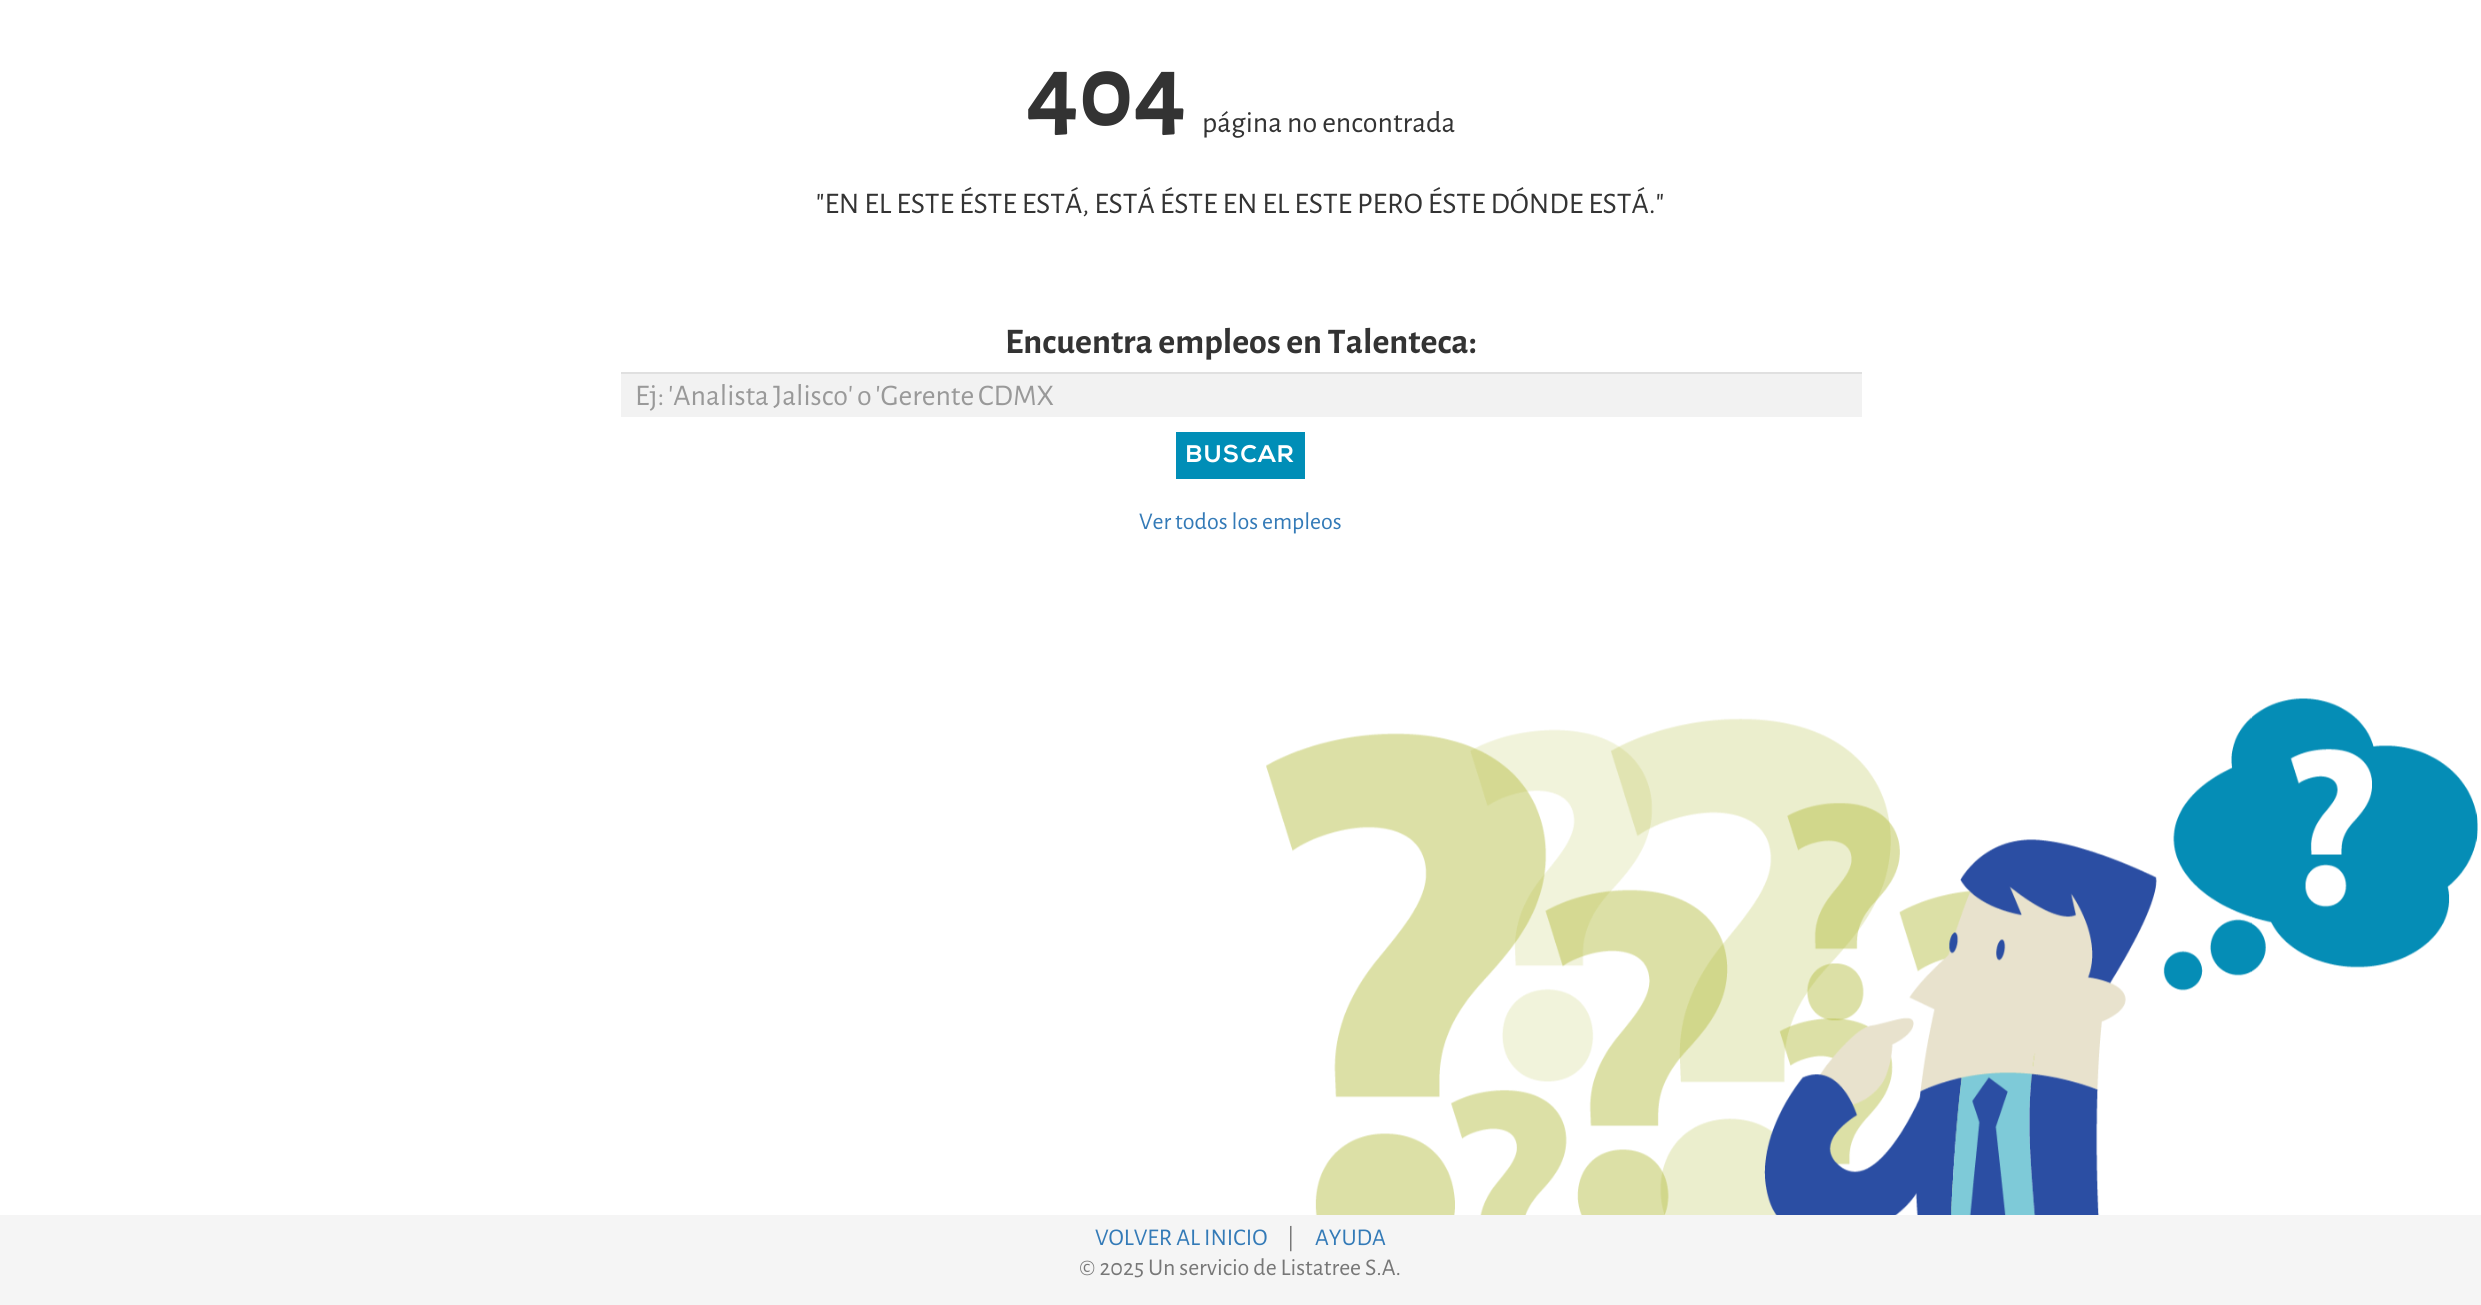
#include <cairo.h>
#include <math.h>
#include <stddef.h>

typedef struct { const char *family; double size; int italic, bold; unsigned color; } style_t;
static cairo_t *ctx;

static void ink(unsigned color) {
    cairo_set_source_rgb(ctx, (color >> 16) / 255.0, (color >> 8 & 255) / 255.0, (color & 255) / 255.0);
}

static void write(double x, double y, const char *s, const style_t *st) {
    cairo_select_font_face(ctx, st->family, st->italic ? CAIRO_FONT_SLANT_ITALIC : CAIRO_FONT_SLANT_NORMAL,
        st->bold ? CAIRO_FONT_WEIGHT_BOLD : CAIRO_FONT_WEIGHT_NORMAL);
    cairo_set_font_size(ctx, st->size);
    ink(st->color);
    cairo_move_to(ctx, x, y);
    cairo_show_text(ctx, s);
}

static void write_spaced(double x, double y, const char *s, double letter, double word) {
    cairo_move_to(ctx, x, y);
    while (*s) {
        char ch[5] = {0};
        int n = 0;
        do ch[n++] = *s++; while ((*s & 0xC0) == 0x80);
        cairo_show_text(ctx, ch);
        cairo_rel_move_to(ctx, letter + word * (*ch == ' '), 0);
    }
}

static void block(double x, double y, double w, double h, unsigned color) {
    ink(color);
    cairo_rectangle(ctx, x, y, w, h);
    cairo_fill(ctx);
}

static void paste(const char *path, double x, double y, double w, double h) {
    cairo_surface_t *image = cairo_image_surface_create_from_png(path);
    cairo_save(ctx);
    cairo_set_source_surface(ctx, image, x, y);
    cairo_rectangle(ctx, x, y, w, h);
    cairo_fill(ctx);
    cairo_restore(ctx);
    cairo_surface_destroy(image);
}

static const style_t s1 = {"Alegreya Sans", 105, 0, 1, 0x333333};
static const style_t s2 = {"Alegreya Sans", 30, 0, 0, 0x333333};
static const style_t s3 = {"Alegreya Sans", 36, 0, 1, 0x333333};
static const style_t s4 = {"Alegreya Sans", 24, 0, 0, 0x337ab7};
static const style_t s5 = {"Alegreya Sans", 24, 0, 0, 0x777777};

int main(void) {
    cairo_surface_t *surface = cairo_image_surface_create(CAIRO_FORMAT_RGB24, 2481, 1305);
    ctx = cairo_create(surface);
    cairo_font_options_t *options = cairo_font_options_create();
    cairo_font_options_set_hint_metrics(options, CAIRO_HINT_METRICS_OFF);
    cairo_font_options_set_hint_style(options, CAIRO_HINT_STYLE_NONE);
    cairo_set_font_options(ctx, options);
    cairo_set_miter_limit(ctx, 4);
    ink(0xffffff);
    cairo_paint(ctx);
    paste("pic1.png", 1266, 698, 1212, 517);
    write(1026, 125, "404", &s1);
    write(1202, 132, "página no encontrada", &s2);
    write(816, 213, "\"EN EL ESTE ÉSTE ESTÁ, ESTÁ ÉSTE EN EL ESTE PERO ÉSTE DÓNDE ESTÁ.\"", &s2);
    write(1005, 353, "Encuentra empleos en Talenteca:", &s3);
    block(621, 374, 1241, 43, 0xf2f2f2);
    block(621, 372, 1241, 2, 0xe0e0e0);
    cairo_select_font_face(ctx, "Alegreya Sans", CAIRO_FONT_SLANT_NORMAL, CAIRO_FONT_WEIGHT_NORMAL);
    cairo_set_font_size(ctx, 30);
    ink(0x999999);
    write_spaced(635, 405, "Ej: 'Analista Jalisco' o 'Gerente CDMX", 0, -1);
    block(1176, 432, 129, 47, 0x008eb7);
    cairo_select_font_face(ctx, "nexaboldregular", CAIRO_FONT_SLANT_NORMAL, CAIRO_FONT_WEIGHT_BOLD);
    cairo_set_font_size(ctx, 24);
    ink(0xffffff);
    write_spaced(1186, 462, "BUSCAR", 1.5, 0);
    write(1139, 529, "Ver todos los empleos", &s4);
    block(0, 1215, 2481, 90, 0xf5f5f5);
    write(1095, 1245, "VOLVER AL INICIO", &s4);
    write(1287, 1245, "|", &s5);
    write(1315, 1245, "AYUDA", &s4);
    write(1079, 1275, "© 2025 Un servicio de Listatree S.A.", &s5);
    cairo_surface_write_to_png(surface, "screenshot.png");
    cairo_font_options_destroy(options);
    cairo_destroy(ctx);
    cairo_surface_destroy(surface);
    return 0;
}
